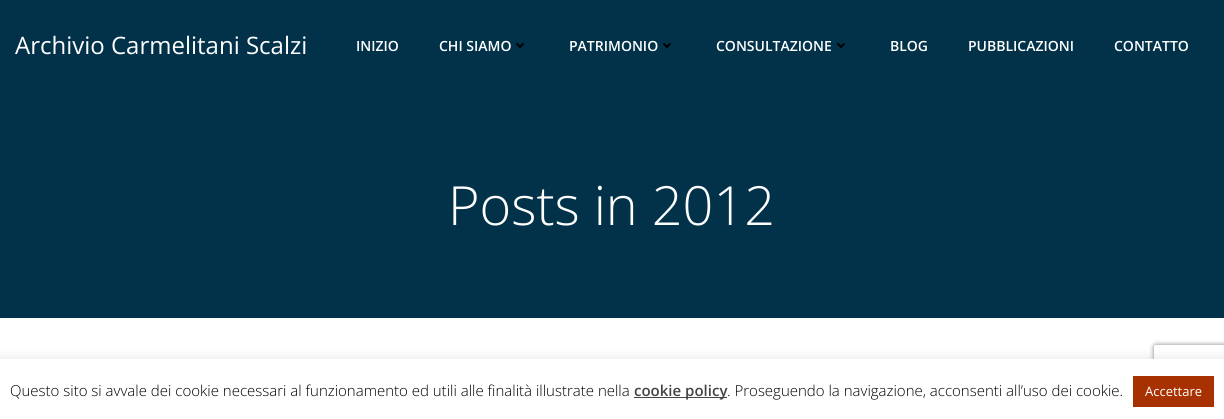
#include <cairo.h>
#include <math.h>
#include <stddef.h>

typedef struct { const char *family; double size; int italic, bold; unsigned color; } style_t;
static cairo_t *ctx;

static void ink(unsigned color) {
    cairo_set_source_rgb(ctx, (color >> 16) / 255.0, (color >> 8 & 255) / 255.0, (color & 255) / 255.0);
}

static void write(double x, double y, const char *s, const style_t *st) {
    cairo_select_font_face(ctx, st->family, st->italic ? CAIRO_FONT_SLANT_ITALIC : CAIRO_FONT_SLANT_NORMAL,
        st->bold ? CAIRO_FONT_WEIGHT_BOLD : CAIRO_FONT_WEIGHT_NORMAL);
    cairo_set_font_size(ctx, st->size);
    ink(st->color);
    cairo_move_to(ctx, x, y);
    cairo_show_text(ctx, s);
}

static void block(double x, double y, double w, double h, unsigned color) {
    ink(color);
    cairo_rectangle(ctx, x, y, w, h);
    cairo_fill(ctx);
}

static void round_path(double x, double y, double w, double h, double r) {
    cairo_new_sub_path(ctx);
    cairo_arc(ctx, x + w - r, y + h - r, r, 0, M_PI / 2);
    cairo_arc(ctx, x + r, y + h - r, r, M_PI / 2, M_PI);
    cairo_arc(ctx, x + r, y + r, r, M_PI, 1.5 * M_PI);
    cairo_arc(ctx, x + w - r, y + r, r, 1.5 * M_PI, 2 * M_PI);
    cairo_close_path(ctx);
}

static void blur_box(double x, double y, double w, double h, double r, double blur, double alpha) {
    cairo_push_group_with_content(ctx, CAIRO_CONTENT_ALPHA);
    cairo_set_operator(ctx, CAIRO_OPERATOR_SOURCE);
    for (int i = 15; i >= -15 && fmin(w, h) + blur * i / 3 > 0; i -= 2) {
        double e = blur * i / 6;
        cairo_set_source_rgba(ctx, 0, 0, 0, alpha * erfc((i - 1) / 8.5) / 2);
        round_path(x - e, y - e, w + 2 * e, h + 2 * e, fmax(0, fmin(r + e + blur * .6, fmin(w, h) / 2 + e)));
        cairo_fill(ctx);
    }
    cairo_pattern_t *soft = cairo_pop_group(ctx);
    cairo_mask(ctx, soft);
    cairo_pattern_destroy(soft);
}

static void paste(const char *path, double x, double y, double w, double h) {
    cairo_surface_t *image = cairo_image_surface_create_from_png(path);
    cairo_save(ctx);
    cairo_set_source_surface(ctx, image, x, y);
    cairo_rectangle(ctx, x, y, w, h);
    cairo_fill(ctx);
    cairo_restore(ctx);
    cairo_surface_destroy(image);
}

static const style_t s1 = {"Open Sans", 24, 0, 0, 0xffffff};
static const style_t s2 = {"Open Sans SemiBold", 14, 0, 0, 0xffffff};
static const style_t s3 = {"Open Sans Light", 54, 0, 0, 0xffffff};
static const style_t s4 = {"Open Sans Light", 15, 0, 0, 0x000000};
static const style_t s5 = {"Open Sans SemiBold", 15, 0, 0, 0x444444};
static const style_t s6 = {"Open Sans", 13, 0, 0, 0xffffff};

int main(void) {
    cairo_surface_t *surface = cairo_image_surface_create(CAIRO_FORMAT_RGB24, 1224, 419);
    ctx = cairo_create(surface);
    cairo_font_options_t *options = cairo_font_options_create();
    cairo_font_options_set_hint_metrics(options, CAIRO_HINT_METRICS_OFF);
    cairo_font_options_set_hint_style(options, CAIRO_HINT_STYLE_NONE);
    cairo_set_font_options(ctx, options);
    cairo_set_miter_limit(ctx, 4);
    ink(0xffffff);
    cairo_paint(ctx);
    block(0, 0, 1224, 318, 0x013249);
    write(15, 54, "Archivio Carmelitani Scalzi", &s1);
    write(356, 51, "INIZIO", &s2);
    write(439, 51, "CHI SIAMO", &s2);
    paste("pic1.png", 516, 43, 8, 5);
    write(569, 51, "PATRIMONIO", &s2);
    paste("pic1.png", 663, 43, 8, 5);
    write(716, 51, "CONSULTAZIONE", &s2);
    paste("pic1.png", 837, 43, 8, 5);
    write(890, 51, "BLOG", &s2);
    write(968, 51, "PUBBLICAZIONI", &s2);
    write(1114, 51, "CONTATTO", &s2);
    write(448, 225, "Posts in 2012", &s3);
    cairo_save(ctx);
    cairo_set_fill_rule(ctx, CAIRO_FILL_RULE_EVEN_ODD);
    cairo_new_path(ctx);
    cairo_move_to(ctx, 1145, 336);
    cairo_line_to(ctx, 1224, 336);
    cairo_line_to(ctx, 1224, 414);
    cairo_line_to(ctx, 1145, 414);
    cairo_close_path(ctx);
    cairo_move_to(ctx, 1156, 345);
    cairo_line_to(ctx, 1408, 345);
    cairo_curve_to(ctx, 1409, 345, 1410, 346, 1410, 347);
    cairo_line_to(ctx, 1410, 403);
    cairo_curve_to(ctx, 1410, 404, 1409, 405, 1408, 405);
    cairo_line_to(ctx, 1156, 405);
    cairo_curve_to(ctx, 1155, 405, 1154, 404, 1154, 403);
    cairo_line_to(ctx, 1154, 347);
    cairo_curve_to(ctx, 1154, 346, 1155, 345, 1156, 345);
    cairo_close_path(ctx);
    cairo_clip(ctx);
    ink(0x808080);
    blur_box(1154, 345, 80, 60, 2, 2.5, 1);
    cairo_restore(ctx);
    ink(0xacabab);
    blur_box(0, 358, 1224, 60, 0, 5, 0.3);
    block(0, 359, 1224, 60, 0xffffff);
    write(10, 396, "Questo sito si avvale dei cookie necessari al funzionamento ed utili alle finalità illustrate nella", &s4);
    block(634, 397, 93, 1, 0x444444);
    write(634, 396, "cookie policy", &s5);
    write(727, 396, ". Proseguendo la navigazione, acconsenti all’uso dei cookie.", &s4);
    block(1133, 376, 81, 31, 0xa73100);
    write(1145, 396, "Accettare", &s6);
    cairo_surface_write_to_png(surface, "screenshot.png");
    cairo_font_options_destroy(options);
    cairo_destroy(ctx);
    cairo_surface_destroy(surface);
    return 0;
}
